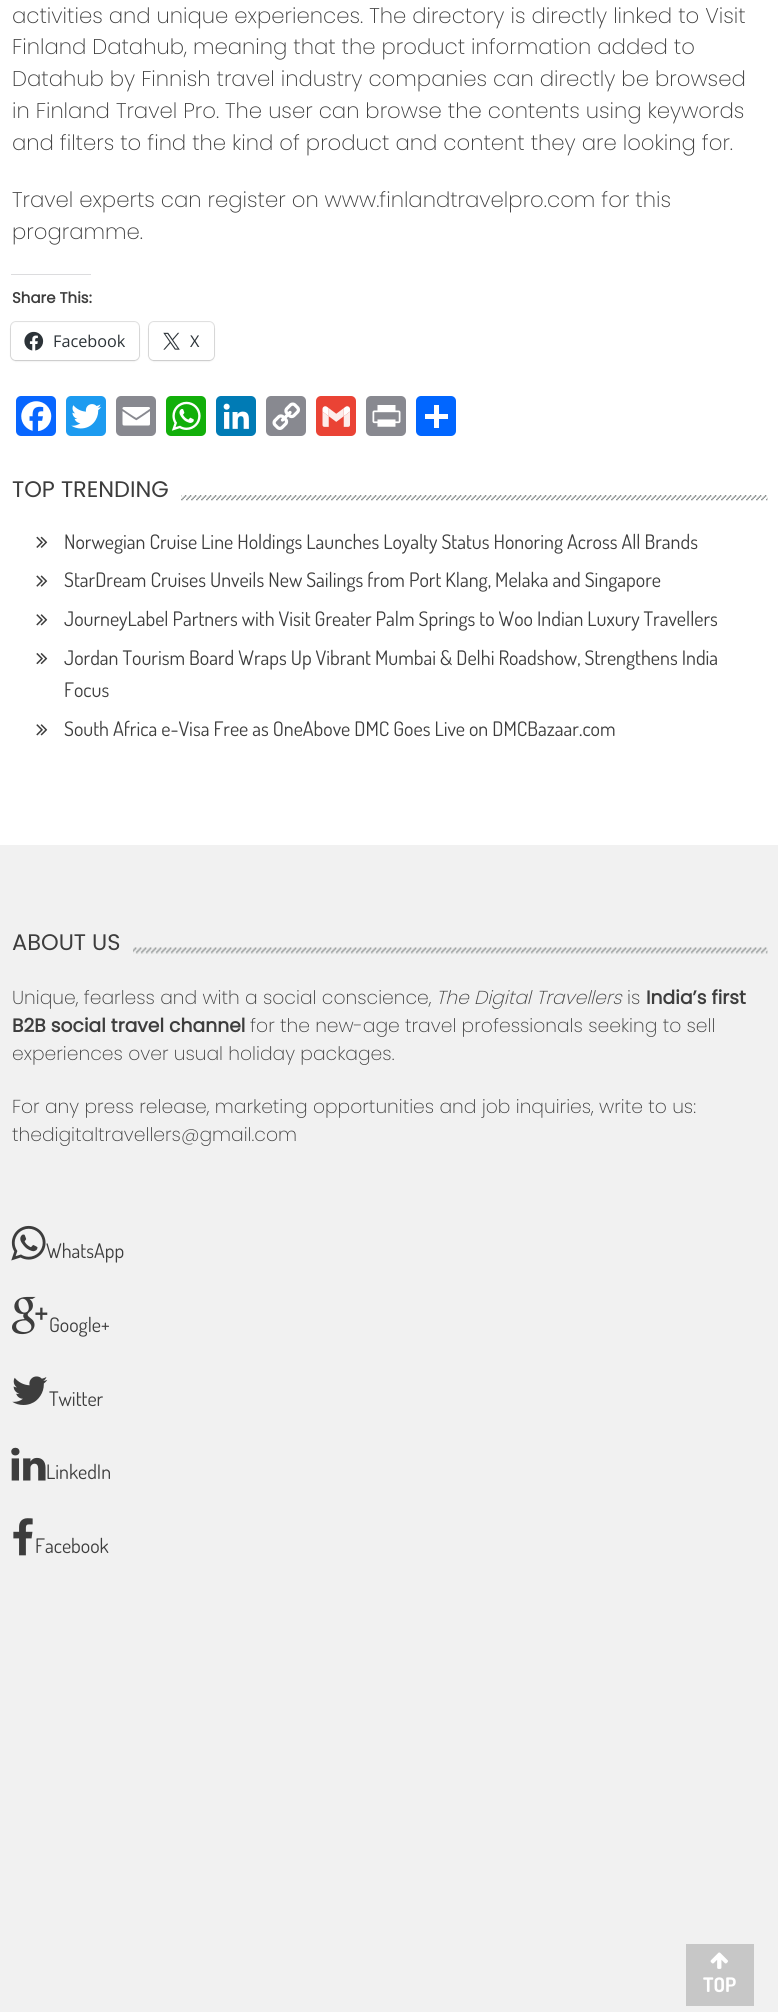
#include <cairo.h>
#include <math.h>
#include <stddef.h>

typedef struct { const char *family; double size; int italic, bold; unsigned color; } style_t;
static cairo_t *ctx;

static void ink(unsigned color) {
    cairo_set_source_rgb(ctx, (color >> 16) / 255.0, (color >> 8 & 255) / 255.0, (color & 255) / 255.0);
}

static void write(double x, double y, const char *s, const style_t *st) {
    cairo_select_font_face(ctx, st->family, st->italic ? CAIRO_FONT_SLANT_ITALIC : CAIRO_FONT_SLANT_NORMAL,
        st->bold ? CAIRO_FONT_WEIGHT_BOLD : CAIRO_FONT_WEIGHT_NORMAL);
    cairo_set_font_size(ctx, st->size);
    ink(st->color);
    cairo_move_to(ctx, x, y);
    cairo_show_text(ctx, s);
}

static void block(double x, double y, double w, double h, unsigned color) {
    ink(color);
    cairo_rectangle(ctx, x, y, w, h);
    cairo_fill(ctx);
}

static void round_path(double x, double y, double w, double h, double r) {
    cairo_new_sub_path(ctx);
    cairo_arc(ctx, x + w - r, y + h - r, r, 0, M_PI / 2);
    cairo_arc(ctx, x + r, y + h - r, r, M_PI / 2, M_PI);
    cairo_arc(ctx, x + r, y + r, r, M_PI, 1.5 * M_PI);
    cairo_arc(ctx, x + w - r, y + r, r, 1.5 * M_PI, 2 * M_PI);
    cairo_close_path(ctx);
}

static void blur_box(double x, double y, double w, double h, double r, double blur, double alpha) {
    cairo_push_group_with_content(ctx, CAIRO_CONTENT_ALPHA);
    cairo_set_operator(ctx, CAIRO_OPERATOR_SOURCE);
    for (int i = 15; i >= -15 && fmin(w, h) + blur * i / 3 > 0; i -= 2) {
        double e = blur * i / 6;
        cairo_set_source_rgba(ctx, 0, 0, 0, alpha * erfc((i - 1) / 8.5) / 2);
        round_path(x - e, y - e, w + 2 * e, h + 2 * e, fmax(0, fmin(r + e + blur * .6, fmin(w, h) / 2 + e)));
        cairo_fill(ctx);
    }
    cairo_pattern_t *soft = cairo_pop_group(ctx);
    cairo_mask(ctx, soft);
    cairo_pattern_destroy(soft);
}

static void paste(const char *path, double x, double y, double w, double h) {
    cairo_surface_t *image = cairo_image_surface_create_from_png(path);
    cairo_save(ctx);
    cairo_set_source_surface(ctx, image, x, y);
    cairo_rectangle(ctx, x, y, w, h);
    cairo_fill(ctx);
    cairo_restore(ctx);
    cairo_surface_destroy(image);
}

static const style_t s1 = {"Poppins ExtraLight", 21.25, 0, 0, 0x3d3d3d};
static const style_t s2 = {"Poppins", 15, 0, 1, 0x3d3d3d};
static const style_t s3 = {"Open Sans", 16.25, 0, 0, 0x2c3338};
static const style_t s4 = {"Poppins", 22.5, 0, 0, 0x3d3d3d};
static const style_t s5 = {"Dosis", 20, 0, 0, 0x3d3d3d};
static const style_t s6 = {"Poppins ExtraLight", 18.75, 0, 0, 0x3d3d3d};
static const style_t s7 = {"Poppins ExtraLight", 18.75, 1, 0, 0x3d3d3d};
static const style_t s8 = {"Poppins", 18.75, 0, 1, 0x3d3d3d};
static const style_t s9 = {"Dosis", 20, 0, 1, 0xffffff};

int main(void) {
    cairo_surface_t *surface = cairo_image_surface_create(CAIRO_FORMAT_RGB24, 778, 2012);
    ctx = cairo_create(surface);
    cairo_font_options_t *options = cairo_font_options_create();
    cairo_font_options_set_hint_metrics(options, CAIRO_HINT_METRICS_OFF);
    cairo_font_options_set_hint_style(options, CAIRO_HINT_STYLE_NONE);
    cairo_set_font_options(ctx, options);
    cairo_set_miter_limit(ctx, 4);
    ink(0xffffff);
    cairo_paint(ctx);
    write(12, 23, "activities and unique experiences. The directory is directly linked to Visit", &s1);
    write(12, 54, "Finland Datahub, meaning that the product information added to", &s1);
    write(12, 86, "Datahub by Finnish travel industry companies can directly be browsed", &s1);
    write(12, 118, "in Finland Travel Pro. The user can browse the contents using keywords", &s1);
    write(12, 150, "and filters to find the kind of product and content they are looking for.", &s1);
    write(12, 207, "Travel experts can register on www.finlandtravelpro.com for this", &s1);
    write(12, 239, "programme.", &s1);
    block(11, 274, 80, 1, 0xdcdcde);
    write(12, 303, "Share This:", &s2);
    round_path(10.5, 321.5, 129, 39, 5.5);
    ink(0xe0e0e0);
    cairo_set_line_width(ctx, 1);
    cairo_stroke(ctx);
    ink(0x000000);
    blur_box(11, 324, 128, 37, 5, 1, 0.12);
    ink(0xffffff);
    round_path(11, 323, 128, 37, 5);
    cairo_fill(ctx);
    paste("pic1.png", 24, 331, 20, 20);
    write(53, 347, "Facebook", &s3);
    round_path(148.5, 321.5, 66, 39, 5.5);
    ink(0xe0e0e0);
    cairo_stroke(ctx);
    ink(0x000000);
    blur_box(149, 324, 65, 37, 5, 1, 0.12);
    ink(0xffffff);
    round_path(149, 323, 65, 37, 5);
    cairo_fill(ctx);
    paste("pic2.png", 163, 332, 17, 18);
    write(190, 347, "X", &s3);
    ink(0x0866ff);
    round_path(16, 396, 40, 40, 5);
    cairo_fill(ctx);
    paste("pic3.png", 21, 401, 31, 31);
    ink(0x1d9bf0);
    round_path(66, 396, 40, 40, 5);
    cairo_fill(ctx);
    paste("pic4.png", 71, 404, 31, 25);
    ink(0x888990);
    round_path(116, 396, 40, 40, 5);
    cairo_fill(ctx);
    paste("pic5.png", 122, 407, 28, 19);
    ink(0x12af0a);
    round_path(166, 396, 40, 40, 5);
    cairo_fill(ctx);
    paste("pic6.png", 171, 401, 30, 30);
    ink(0x007bb5);
    round_path(216, 396, 40, 40, 5);
    cairo_fill(ctx);
    paste("pic7.png", 223, 403, 26, 26);
    ink(0x888990);
    round_path(266, 396, 40, 40, 5);
    cairo_fill(ctx);
    paste("pic8.png", 272, 402, 28, 28);
    ink(0xea4335);
    round_path(316, 396, 40, 40, 5);
    cairo_fill(ctx);
    paste("pic9.png", 322, 406, 28, 21);
    ink(0x888990);
    round_path(366, 396, 40, 40, 5);
    cairo_fill(ctx);
    paste("pic10.png", 372, 405, 29, 22);
    ink(0x0166ff);
    round_path(416, 396, 40, 40, 5);
    cairo_fill(ctx);
    block(434, 405, 5, 23, 0xffffff);
    block(425, 414, 23, 5, 0xffffff);
    paste("pic11.png", 181, 495, 587, 6);
    write(12, 497, "TOP TRENDING", &s4);
    paste("pic12.png", 36, 536, 12, 12);
    write(64, 549, "Norwegian Cruise Line Holdings Launches Loyalty Status Honoring Across All Brands", &s5);
    paste("pic13.png", 36, 575, 12, 12);
    write(64, 587, "StarDream Cruises Unveils New Sailings from Port Klang, Melaka and Singapore", &s5);
    paste("pic14.png", 36, 614, 12, 12);
    write(64, 626, "JourneyLabel Partners with Visit Greater Palm Springs to Woo Indian Luxury Travellers", &s5);
    paste("pic15.png", 36, 653, 12, 12);
    write(64, 665, "Jordan Tourism Board Wraps Up Vibrant Mumbai & Delhi Roadshow, Strengthens India", &s5);
    write(64, 697, "Focus", &s5);
    paste("pic14.png", 36, 724, 12, 12);
    write(64, 736, "South Africa e-Visa Free as OneAbove DMC Goes Live on DMCBazaar.com", &s5);
    block(0, 845, 778, 1167, 0xf1f1f1);
    paste("pic16.png", 133, 947, 635, 7);
    write(12, 950, "ABOUT US", &s4);
    write(12, 1004, "Unique, fearless and with a social conscience,", &s6);
    write(436, 1004, "The Digital Travellers", &s7);
    write(627, 1004, "is", &s6);
    write(646, 1004, "India’s first", &s8);
    write(12, 1032, "B2B social travel channel", &s8);
    write(250, 1032, "for the new-age travel professionals seeking to sell", &s6);
    write(12, 1060, "experiences over usual holiday packages.", &s6);
    write(12, 1113, "For any press release, marketing opportunities and job inquiries, write to us:", &s6);
    write(12, 1141, "thedigitaltravellers@gmail.com", &s6);
    paste("pic17.png", 11, 1225, 35, 36);
    write(46, 1258, "WhatsApp", &s5);
    paste("pic18.png", 12, 1296, 36, 39);
    write(49, 1332, "Google+", &s5);
    paste("pic19.png", 12, 1376, 36, 29);
    write(49, 1406, "Twitter", &s5);
    paste("pic20.png", 11, 1447, 35, 34);
    write(46, 1479, "LinkedIn", &s5);
    paste("pic21.png", 13, 1518, 20, 38);
    write(35, 1553, "Facebook", &s5);
    block(686, 1944, 68, 62, 0xc7c7c7);
    paste("pic22.png", 710, 1952, 18, 17);
    write(703, 1992, "TOP", &s9);
    cairo_surface_write_to_png(surface, "screenshot.png");
    cairo_font_options_destroy(options);
    cairo_destroy(ctx);
    cairo_surface_destroy(surface);
    return 0;
}
